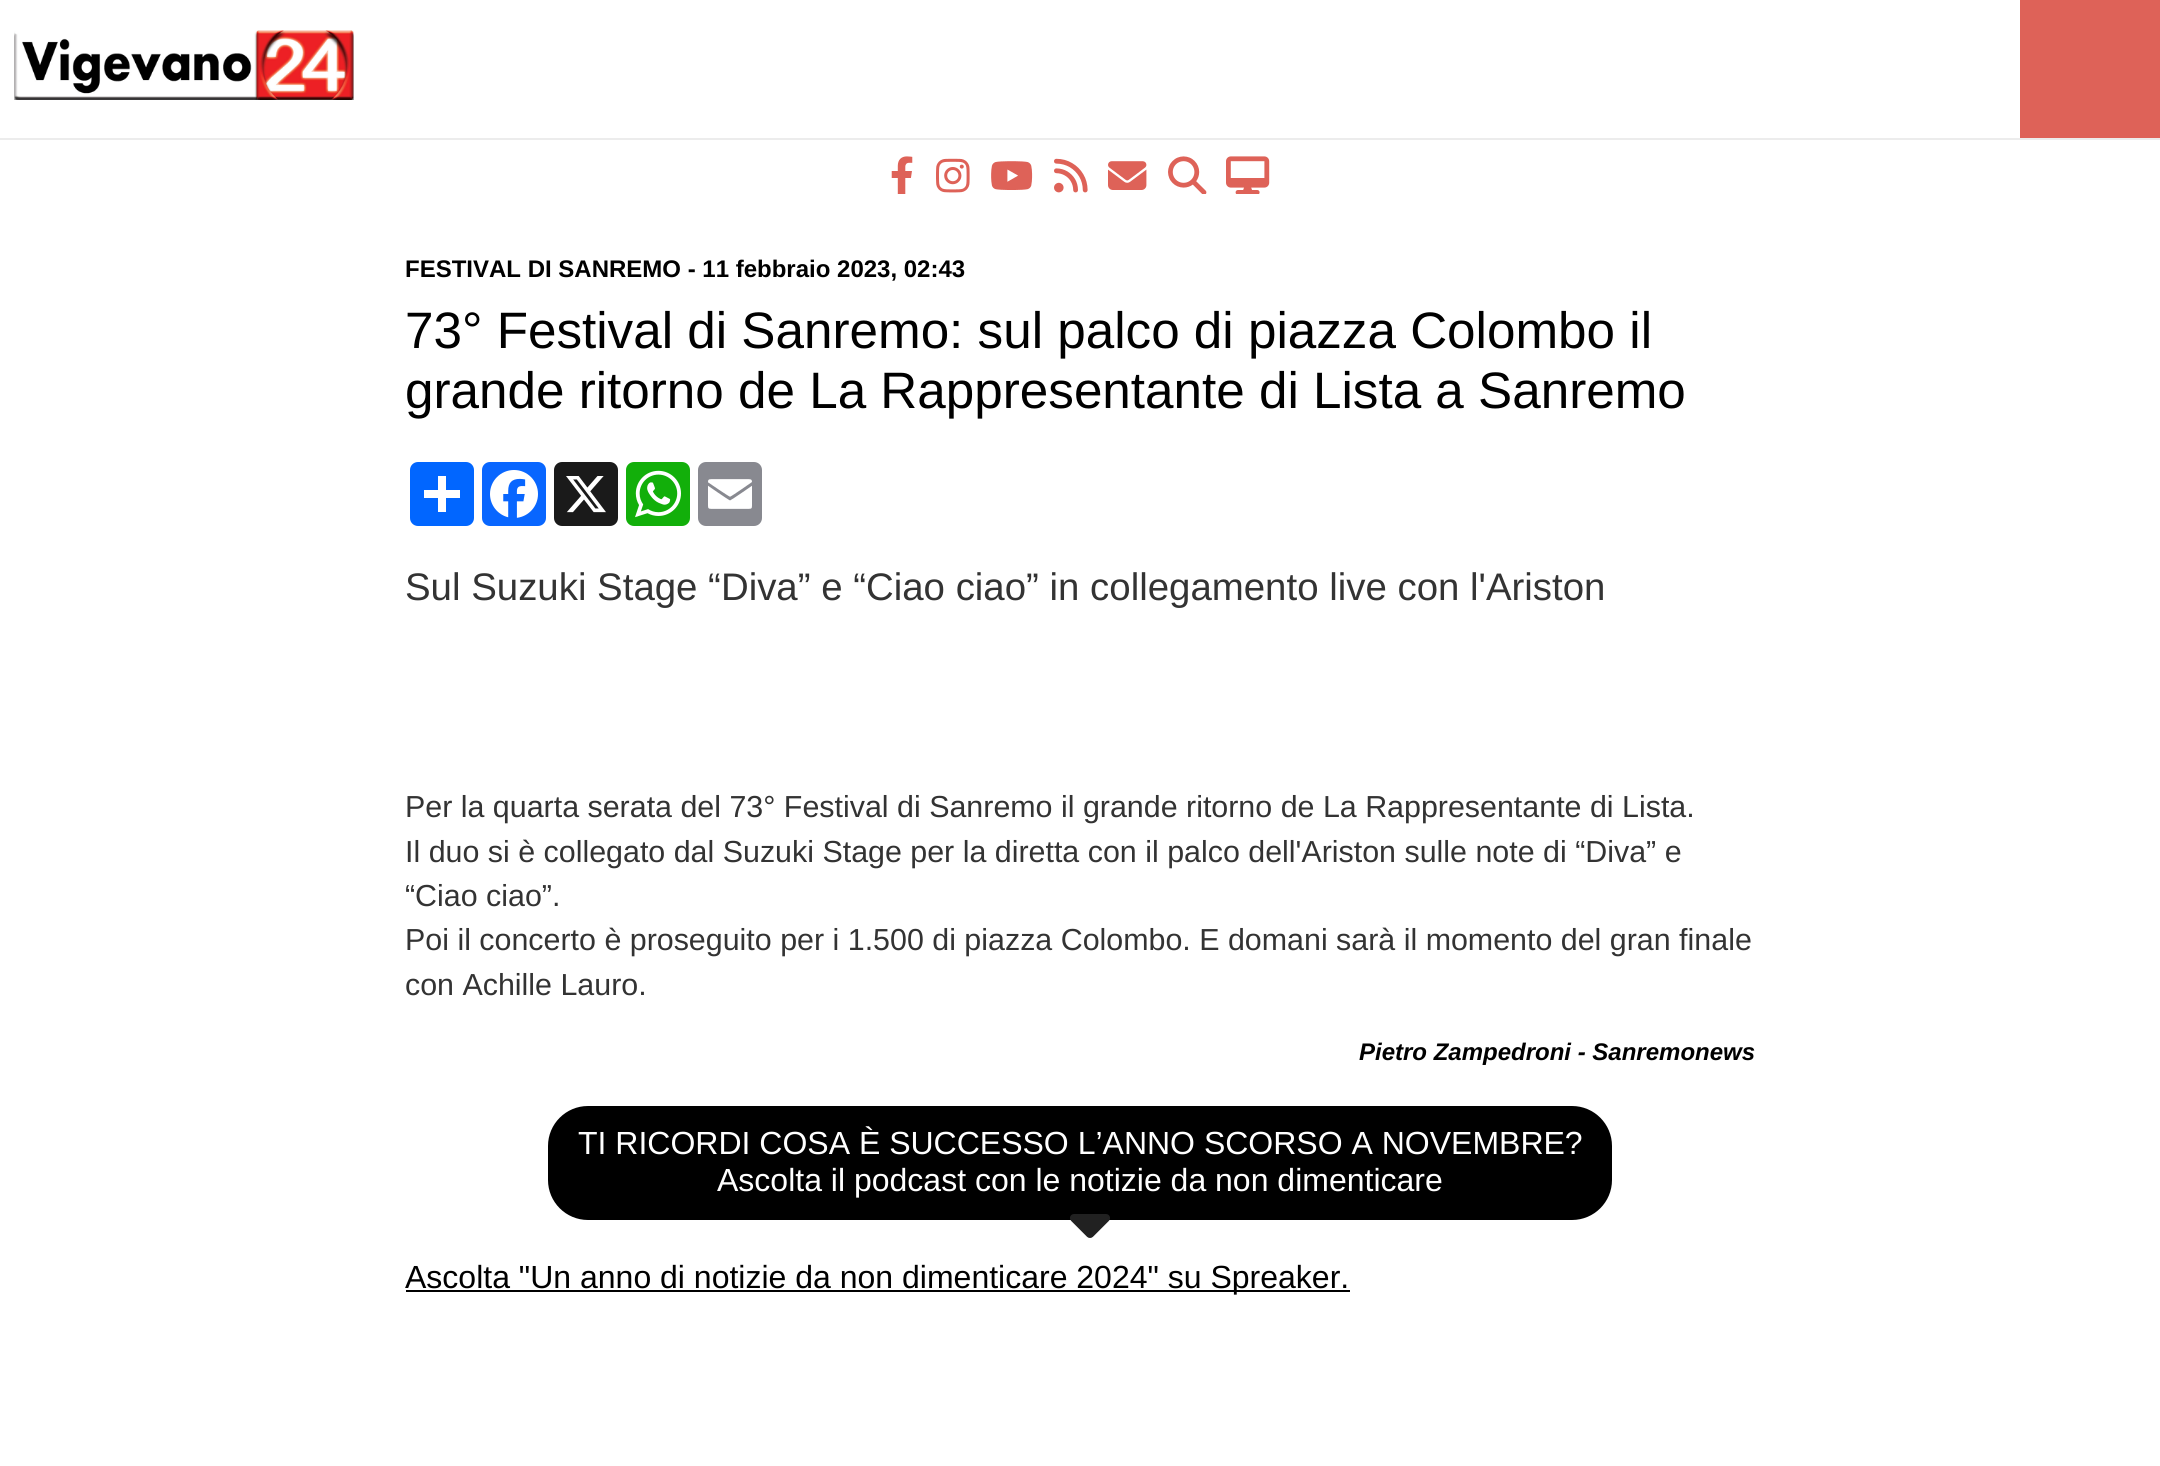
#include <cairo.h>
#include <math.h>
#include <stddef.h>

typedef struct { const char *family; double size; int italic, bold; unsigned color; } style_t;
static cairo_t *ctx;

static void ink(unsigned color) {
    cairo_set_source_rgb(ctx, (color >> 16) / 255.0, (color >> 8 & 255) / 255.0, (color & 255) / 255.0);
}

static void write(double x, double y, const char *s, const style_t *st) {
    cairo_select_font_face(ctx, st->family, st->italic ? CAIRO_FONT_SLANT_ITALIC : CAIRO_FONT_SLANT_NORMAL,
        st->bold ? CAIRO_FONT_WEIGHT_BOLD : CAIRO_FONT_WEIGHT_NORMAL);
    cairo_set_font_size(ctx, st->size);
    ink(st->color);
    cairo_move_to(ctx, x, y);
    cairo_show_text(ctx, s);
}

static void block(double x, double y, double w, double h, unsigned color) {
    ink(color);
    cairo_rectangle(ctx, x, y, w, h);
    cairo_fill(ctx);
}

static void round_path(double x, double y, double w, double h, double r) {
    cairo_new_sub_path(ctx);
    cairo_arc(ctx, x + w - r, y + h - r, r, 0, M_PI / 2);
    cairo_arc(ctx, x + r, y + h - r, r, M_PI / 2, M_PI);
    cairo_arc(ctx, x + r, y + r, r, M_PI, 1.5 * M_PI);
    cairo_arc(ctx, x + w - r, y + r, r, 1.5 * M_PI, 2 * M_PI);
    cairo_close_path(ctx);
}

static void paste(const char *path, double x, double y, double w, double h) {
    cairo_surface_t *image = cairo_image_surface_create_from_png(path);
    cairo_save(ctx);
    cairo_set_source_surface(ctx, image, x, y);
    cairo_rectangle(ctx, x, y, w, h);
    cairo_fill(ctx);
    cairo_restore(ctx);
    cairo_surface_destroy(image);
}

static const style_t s1 = {"Liberation Sans", 24, 0, 1, 0x000000};
static const style_t s2 = {"Liberation Sans", 51.2, 0, 0, 0x000000};
static const style_t s3 = {"Liberation Sans", 38.4, 0, 0, 0x333333};
static const style_t s4 = {"Liberation Sans", 30.4, 0, 0, 0x333333};
static const style_t s5 = {"Liberation Sans", 24, 1, 1, 0x000000};
static const style_t s6 = {"Liberation Sans", 32, 0, 0, 0xffffff};
static const style_t s7 = {"Liberation Sans", 32, 0, 0, 0x000000};

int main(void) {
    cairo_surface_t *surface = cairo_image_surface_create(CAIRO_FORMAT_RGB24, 2160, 1466);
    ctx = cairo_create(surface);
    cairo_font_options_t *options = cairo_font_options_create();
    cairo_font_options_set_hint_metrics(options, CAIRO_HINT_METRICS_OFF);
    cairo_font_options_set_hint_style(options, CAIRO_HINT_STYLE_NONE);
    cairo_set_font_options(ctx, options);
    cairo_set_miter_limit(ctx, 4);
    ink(0xffffff);
    cairo_paint(ctx);
    block(0, 138, 2160, 2, 0xececec);
    paste("pic1.png", 14, 30, 340, 70);
    block(2020, 0, 140, 138, 0xde6258);
    paste("pic2.png", 891, 156, 22, 38);
    paste("pic3.png", 936, 158, 34, 35);
    paste("pic4.png", 991, 161, 42, 29);
    paste("pic5.png", 1054, 158, 34, 35);
    paste("pic6.png", 1108, 161, 39, 29);
    paste("pic7.png", 1168, 156, 39, 38);
    paste("pic8.png", 1226, 156, 44, 38);
    write(405, 277, "FESTIVAL DI SANREMO - 11 febbraio 2023, 02:43", &s1);
    write(405, 348, "73° Festival di Sanremo: sul palco di piazza Colombo il", &s2);
    write(405, 408, "grande ritorno de La Rappresentante di Lista a Sanremo", &s2);
    ink(0x0166ff);
    round_path(410, 462, 64, 64, 8);
    cairo_fill(ctx);
    block(438, 476, 8, 36, 0xffffff);
    block(424, 490, 36, 8, 0xffffff);
    ink(0x0866ff);
    round_path(482, 462, 64, 64, 8);
    cairo_fill(ctx);
    paste("pic9.png", 490, 470, 48, 48);
    ink(0x1a1a1a);
    round_path(554, 462, 64, 64, 8);
    cairo_fill(ctx);
    paste("pic10.png", 566, 476, 40, 37);
    ink(0x12af0a);
    round_path(626, 462, 64, 64, 8);
    cairo_fill(ctx);
    paste("pic11.png", 635, 470, 46, 48);
    ink(0x888990);
    round_path(698, 462, 64, 64, 8);
    cairo_fill(ctx);
    paste("pic12.png", 708, 479, 44, 30);
    write(405, 600, "Sul Suzuki Stage “Diva” e “Ciao ciao” in collegamento live con l'Ariston", &s3);
    write(405, 817, "Per la quarta serata del 73° Festival di Sanremo il grande ritorno de La Rappresentante di Lista.", &s4);
    write(405, 862, "Il duo si è collegato dal Suzuki Stage per la diretta con il palco dell'Ariston sulle note di “Diva” e", &s4);
    write(405, 906, "“Ciao ciao”.", &s4);
    write(405, 950, "Poi il concerto è proseguito per i 1.500 di piazza Colombo. E domani sarà il momento del gran finale", &s4);
    write(405, 995, "con Achille Lauro.", &s4);
    write(1359, 1060, "Pietro Zampedroni - Sanremonews", &s5);
    round_path(548, 1106, 1064, 114, 40);
    cairo_fill(ctx);
    write(578, 1154, "TI RICORDI COSA È SUCCESSO L’ANNO SCORSO A NOVEMBRE?", &s6);
    write(717, 1191, "Ascolta il podcast con le notizie da non dimenticare", &s6);
    paste("pic13.png", 1070, 1214, 40, 24);
    block(406, 1290, 944, 2, 0x000000);
    write(405, 1288, "Ascolta \"Un anno di notizie da non dimenticare 2024\" su Spreaker.", &s7);
    cairo_surface_write_to_png(surface, "screenshot.png");
    cairo_font_options_destroy(options);
    cairo_destroy(ctx);
    cairo_surface_destroy(surface);
    return 0;
}
